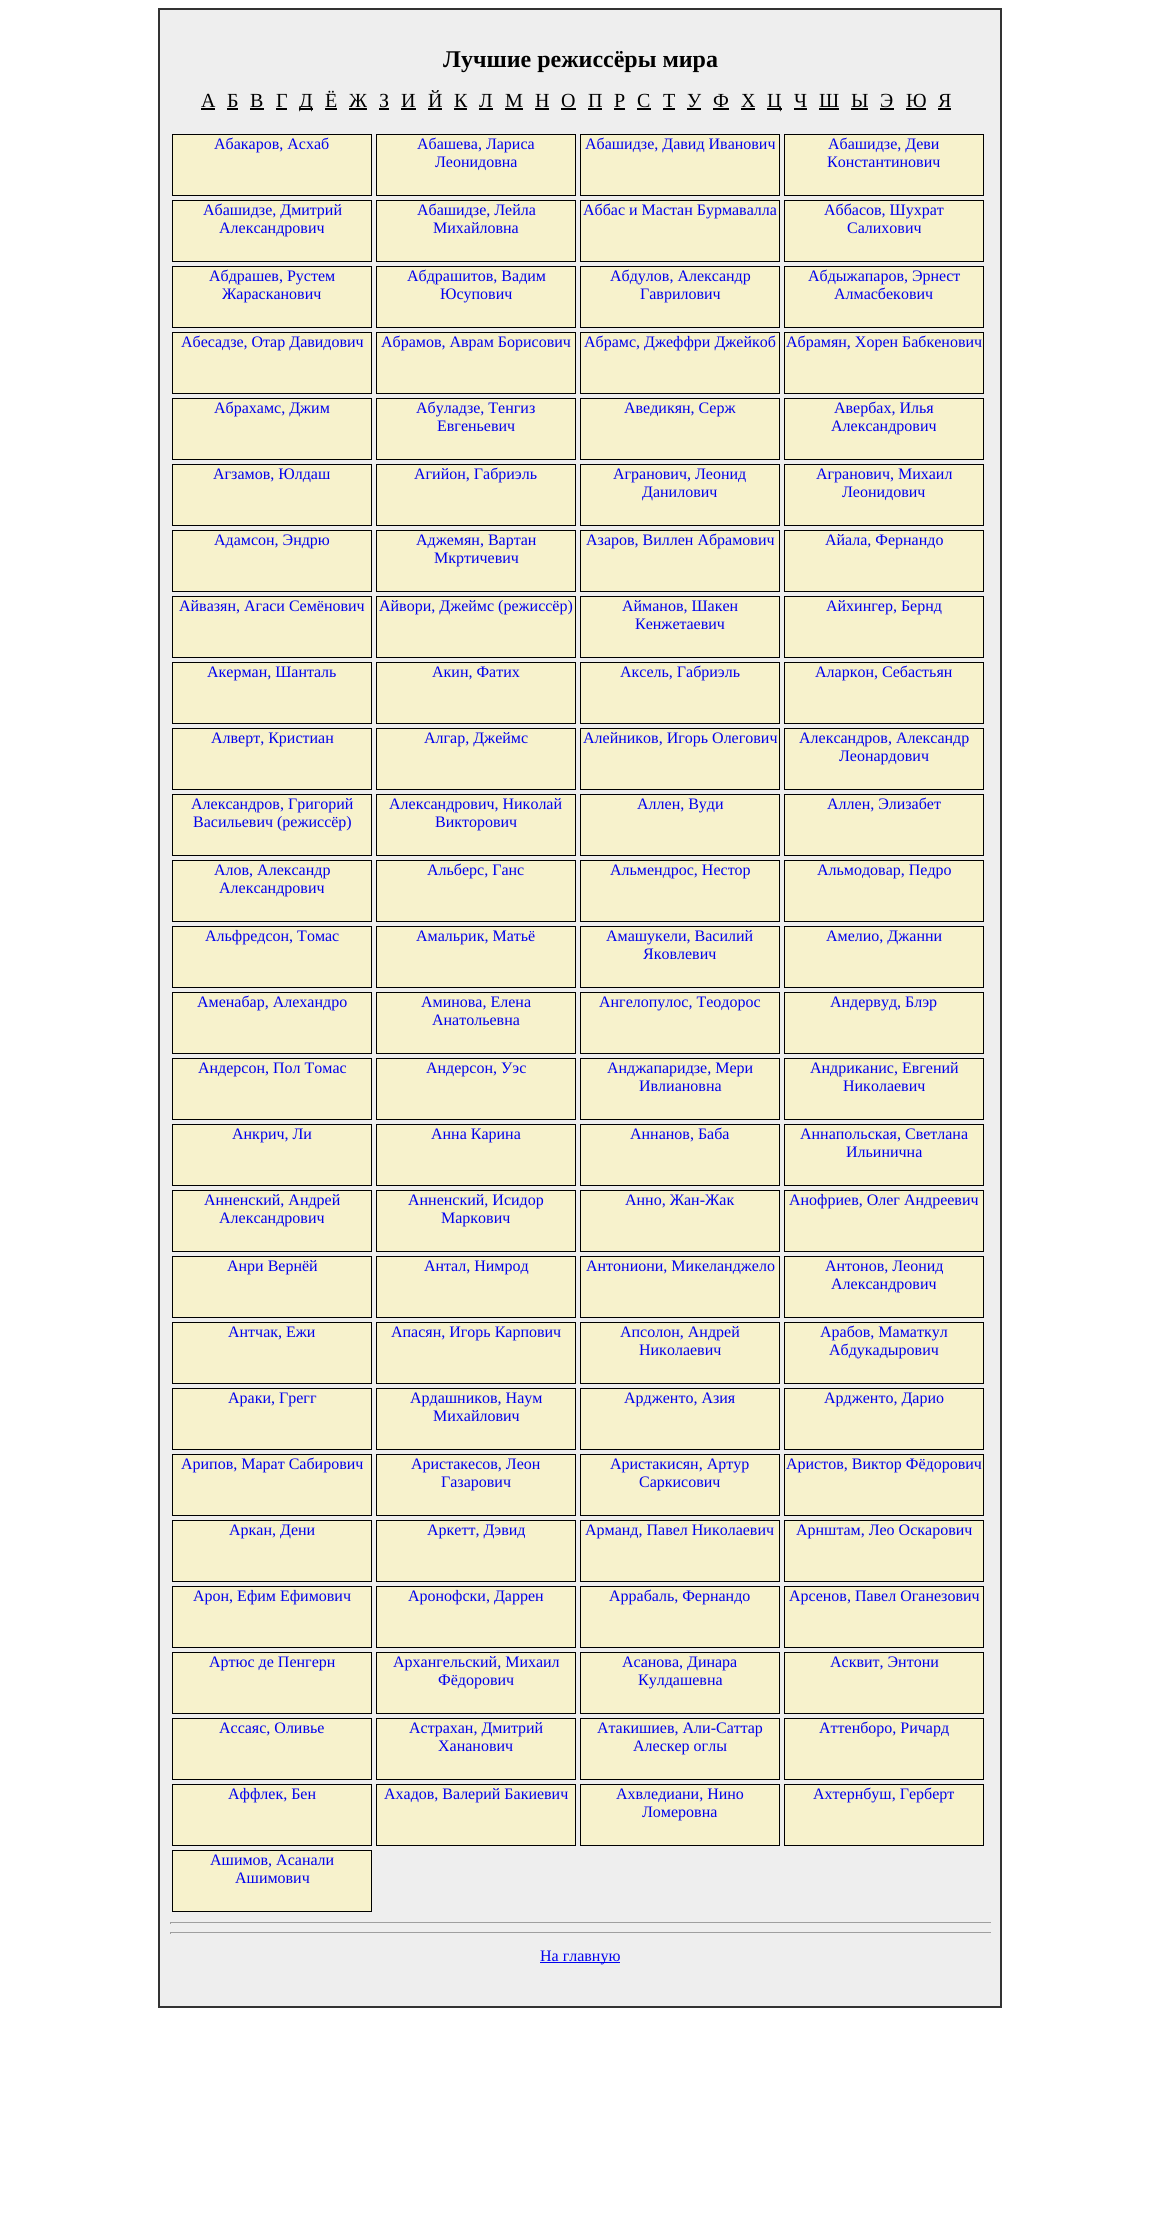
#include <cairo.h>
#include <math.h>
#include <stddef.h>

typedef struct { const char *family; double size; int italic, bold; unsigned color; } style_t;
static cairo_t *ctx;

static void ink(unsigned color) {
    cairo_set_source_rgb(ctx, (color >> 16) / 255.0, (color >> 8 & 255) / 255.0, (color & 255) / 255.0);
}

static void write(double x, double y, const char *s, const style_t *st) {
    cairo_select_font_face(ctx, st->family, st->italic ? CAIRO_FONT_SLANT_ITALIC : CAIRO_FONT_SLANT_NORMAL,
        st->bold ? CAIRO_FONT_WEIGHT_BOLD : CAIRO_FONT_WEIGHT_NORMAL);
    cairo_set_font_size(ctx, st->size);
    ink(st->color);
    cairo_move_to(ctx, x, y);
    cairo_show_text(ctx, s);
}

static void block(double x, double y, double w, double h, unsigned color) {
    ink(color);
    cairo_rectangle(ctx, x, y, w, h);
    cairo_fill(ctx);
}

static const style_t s1 = {"Liberation Serif", 24, 0, 1, 0x000000};
static const style_t s2 = {"Liberation Serif", 20, 0, 0, 0x000000};
static const style_t s3 = {"Liberation Serif", 16, 0, 0, 0x0000ee};

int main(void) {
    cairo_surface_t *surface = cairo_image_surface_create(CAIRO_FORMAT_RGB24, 1160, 2214);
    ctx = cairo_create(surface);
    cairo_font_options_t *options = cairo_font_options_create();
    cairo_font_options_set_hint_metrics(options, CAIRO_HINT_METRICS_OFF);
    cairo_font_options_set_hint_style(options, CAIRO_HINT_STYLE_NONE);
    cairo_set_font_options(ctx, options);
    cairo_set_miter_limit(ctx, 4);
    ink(0xffffff);
    cairo_paint(ctx);
    ink(0xeeeeee);
    cairo_rectangle(ctx, 159, 9, 842, 1998);
    cairo_fill_preserve(ctx);
    ink(0x333333);
    cairo_stroke(ctx);
    write(443, 67, "Лучшие режиссёры мира", &s1);
    write(201, 107, "А", &s2);
    block(201, 108, 14, 2, 0x000000);
    write(227, 107, "Б", &s2);
    block(227, 108, 11, 2, 0x000000);
    write(250, 107, "В", &s2);
    block(250, 108, 14, 2, 0x000000);
    write(276, 107, "Г", &s2);
    block(276, 108, 11, 2, 0x000000);
    block(299, 108, 14, 2, 0x000000);
    write(299, 107, "Д", &s2);
    write(325, 107, "Ё", &s2);
    block(325, 108, 12, 2, 0x000000);
    write(349, 107, "Ж", &s2);
    block(349, 108, 18, 2, 0x000000);
    write(379, 107, "З", &s2);
    block(379, 108, 10, 2, 0x000000);
    write(401, 107, "И", &s2);
    block(401, 108, 15, 2, 0x000000);
    write(428, 107, "Й", &s2);
    block(428, 108, 14, 2, 0x000000);
    write(454, 107, "К", &s2);
    block(454, 108, 13, 2, 0x000000);
    write(479, 107, "Л", &s2);
    block(479, 108, 14, 2, 0x000000);
    write(505, 107, "М", &s2);
    block(505, 108, 18, 2, 0x000000);
    write(535, 107, "Н", &s2);
    block(535, 108, 14, 2, 0x000000);
    write(561, 107, "О", &s2);
    block(561, 108, 15, 2, 0x000000);
    write(588, 107, "П", &s2);
    block(588, 108, 14, 2, 0x000000);
    write(614, 107, "Р", &s2);
    block(614, 108, 11, 2, 0x000000);
    write(637, 107, "С", &s2);
    block(637, 108, 14, 2, 0x000000);
    write(663, 107, "Т", &s2);
    block(663, 108, 12, 2, 0x000000);
    write(687, 107, "У", &s2);
    block(687, 108, 14, 2, 0x000000);
    write(713, 107, "Ф", &s2);
    block(713, 108, 16, 2, 0x000000);
    write(741, 107, "Х", &s2);
    block(741, 108, 14, 2, 0x000000);
    block(767, 108, 15, 2, 0x000000);
    write(767, 107, "Ц", &s2);
    write(794, 107, "Ч", &s2);
    block(794, 108, 13, 2, 0x000000);
    write(819, 107, "Ш", &s2);
    block(819, 108, 20, 2, 0x000000);
    write(851, 107, "Ы", &s2);
    block(851, 108, 17, 2, 0x000000);
    write(880, 107, "Э", &s2);
    block(880, 108, 14, 2, 0x000000);
    write(906, 107, "Ю", &s2);
    block(906, 108, 20, 2, 0x000000);
    write(938, 107, "Я", &s2);
    block(938, 108, 13, 2, 0x000000);
    ink(0xf7f2cc);
    cairo_rectangle(ctx, 172.5, 134.5, 199, 61);
    cairo_fill_preserve(ctx);
    ink(0x000000);
    cairo_set_line_width(ctx, 1);
    cairo_stroke(ctx);
    write(214, 149, "Абакаров, Асхаб", &s3);
    ink(0xf7f2cc);
    cairo_rectangle(ctx, 376.5, 134.5, 199, 61);
    cairo_fill_preserve(ctx);
    ink(0x000000);
    cairo_stroke(ctx);
    write(417, 149, "Абашева, Лариса", &s3);
    write(435, 167, "Леонидовна", &s3);
    ink(0xf7f2cc);
    cairo_rectangle(ctx, 580.5, 134.5, 199, 61);
    cairo_fill_preserve(ctx);
    ink(0x000000);
    cairo_stroke(ctx);
    write(585, 149, "Абашидзе, Давид Иванович", &s3);
    ink(0xf7f2cc);
    cairo_rectangle(ctx, 784.5, 134.5, 199, 61);
    cairo_fill_preserve(ctx);
    ink(0x000000);
    cairo_stroke(ctx);
    write(828, 149, "Абашидзе, Деви", &s3);
    write(827, 167, "Константинович", &s3);
    ink(0xf7f2cc);
    cairo_rectangle(ctx, 172.5, 200.5, 199, 61);
    cairo_fill_preserve(ctx);
    ink(0x000000);
    cairo_stroke(ctx);
    write(203, 215, "Абашидзе, Дмитрий", &s3);
    write(219, 233, "Александрович", &s3);
    ink(0xf7f2cc);
    cairo_rectangle(ctx, 376.5, 200.5, 199, 61);
    cairo_fill_preserve(ctx);
    ink(0x000000);
    cairo_stroke(ctx);
    write(417, 215, "Абашидзе, Лейла", &s3);
    write(433, 233, "Михайловна", &s3);
    ink(0xf7f2cc);
    cairo_rectangle(ctx, 580.5, 200.5, 199, 61);
    cairo_fill_preserve(ctx);
    ink(0x000000);
    cairo_stroke(ctx);
    write(583, 215, "Аббас и Мастан Бурмавалла", &s3);
    ink(0xf7f2cc);
    cairo_rectangle(ctx, 784.5, 200.5, 199, 61);
    cairo_fill_preserve(ctx);
    ink(0x000000);
    cairo_stroke(ctx);
    write(824, 215, "Аббасов, Шухрат", &s3);
    write(847, 233, "Салихович", &s3);
    ink(0xf7f2cc);
    cairo_rectangle(ctx, 172.5, 266.5, 199, 61);
    cairo_fill_preserve(ctx);
    ink(0x000000);
    cairo_stroke(ctx);
    write(209, 281, "Абдрашев, Рустем", &s3);
    write(222, 299, "Жарасканович", &s3);
    ink(0xf7f2cc);
    cairo_rectangle(ctx, 376.5, 266.5, 199, 61);
    cairo_fill_preserve(ctx);
    ink(0x000000);
    cairo_stroke(ctx);
    write(407, 281, "Абдрашитов, Вадим", &s3);
    write(440, 299, "Юсупович", &s3);
    ink(0xf7f2cc);
    cairo_rectangle(ctx, 580.5, 266.5, 199, 61);
    cairo_fill_preserve(ctx);
    ink(0x000000);
    cairo_stroke(ctx);
    write(610, 281, "Абдулов, Александр", &s3);
    write(640, 299, "Гаврилович", &s3);
    ink(0xf7f2cc);
    cairo_rectangle(ctx, 784.5, 266.5, 199, 61);
    cairo_fill_preserve(ctx);
    ink(0x000000);
    cairo_stroke(ctx);
    write(808, 281, "Абдыжапаров, Эрнест", &s3);
    write(834, 299, "Алмасбекович", &s3);
    ink(0xf7f2cc);
    cairo_rectangle(ctx, 172.5, 332.5, 199, 61);
    cairo_fill_preserve(ctx);
    ink(0x000000);
    cairo_stroke(ctx);
    write(181, 347, "Абесадзе, Отар Давидович", &s3);
    ink(0xf7f2cc);
    cairo_rectangle(ctx, 376.5, 332.5, 199, 61);
    cairo_fill_preserve(ctx);
    ink(0x000000);
    cairo_stroke(ctx);
    write(381, 347, "Абрамов, Аврам Борисович", &s3);
    ink(0xf7f2cc);
    cairo_rectangle(ctx, 580.5, 332.5, 199, 61);
    cairo_fill_preserve(ctx);
    ink(0x000000);
    cairo_stroke(ctx);
    write(584, 347, "Абрамс, Джеффри Джейкоб", &s3);
    ink(0xf7f2cc);
    cairo_rectangle(ctx, 784.5, 332.5, 199, 61);
    cairo_fill_preserve(ctx);
    ink(0x000000);
    cairo_stroke(ctx);
    write(786, 347, "Абрамян, Хорен Бабкенович", &s3);
    ink(0xf7f2cc);
    cairo_rectangle(ctx, 172.5, 398.5, 199, 61);
    cairo_fill_preserve(ctx);
    ink(0x000000);
    cairo_stroke(ctx);
    write(214, 413, "Абрахамс, Джим", &s3);
    ink(0xf7f2cc);
    cairo_rectangle(ctx, 376.5, 398.5, 199, 61);
    cairo_fill_preserve(ctx);
    ink(0x000000);
    cairo_stroke(ctx);
    write(416, 413, "Абуладзе, Тенгиз", &s3);
    write(437, 431, "Евгеньевич", &s3);
    ink(0xf7f2cc);
    cairo_rectangle(ctx, 580.5, 398.5, 199, 61);
    cairo_fill_preserve(ctx);
    ink(0x000000);
    cairo_stroke(ctx);
    write(624, 413, "Аведикян, Серж", &s3);
    ink(0xf7f2cc);
    cairo_rectangle(ctx, 784.5, 398.5, 199, 61);
    cairo_fill_preserve(ctx);
    ink(0x000000);
    cairo_stroke(ctx);
    write(834, 413, "Авербах, Илья", &s3);
    write(831, 431, "Александрович", &s3);
    ink(0xf7f2cc);
    cairo_rectangle(ctx, 172.5, 464.5, 199, 61);
    cairo_fill_preserve(ctx);
    ink(0x000000);
    cairo_stroke(ctx);
    write(213, 479, "Агзамов, Юлдаш", &s3);
    ink(0xf7f2cc);
    cairo_rectangle(ctx, 376.5, 464.5, 199, 61);
    cairo_fill_preserve(ctx);
    ink(0x000000);
    cairo_stroke(ctx);
    write(414, 479, "Агийон, Габриэль", &s3);
    ink(0xf7f2cc);
    cairo_rectangle(ctx, 580.5, 464.5, 199, 61);
    cairo_fill_preserve(ctx);
    ink(0x000000);
    cairo_stroke(ctx);
    write(613, 479, "Агранович, Леонид", &s3);
    write(642, 497, "Данилович", &s3);
    ink(0xf7f2cc);
    cairo_rectangle(ctx, 784.5, 464.5, 199, 61);
    cairo_fill_preserve(ctx);
    ink(0x000000);
    cairo_stroke(ctx);
    write(816, 479, "Агранович, Михаил", &s3);
    write(842, 497, "Леонидович", &s3);
    ink(0xf7f2cc);
    cairo_rectangle(ctx, 172.5, 530.5, 199, 61);
    cairo_fill_preserve(ctx);
    ink(0x000000);
    cairo_stroke(ctx);
    write(214, 545, "Адамсон, Эндрю", &s3);
    ink(0xf7f2cc);
    cairo_rectangle(ctx, 376.5, 530.5, 199, 61);
    cairo_fill_preserve(ctx);
    ink(0x000000);
    cairo_stroke(ctx);
    write(416, 545, "Аджемян, Вартан", &s3);
    write(434, 563, "Мкртичевич", &s3);
    ink(0xf7f2cc);
    cairo_rectangle(ctx, 580.5, 530.5, 199, 61);
    cairo_fill_preserve(ctx);
    ink(0x000000);
    cairo_stroke(ctx);
    write(586, 545, "Азаров, Виллен Абрамович", &s3);
    ink(0xf7f2cc);
    cairo_rectangle(ctx, 784.5, 530.5, 199, 61);
    cairo_fill_preserve(ctx);
    ink(0x000000);
    cairo_stroke(ctx);
    write(825, 545, "Айала, Фернандо", &s3);
    ink(0xf7f2cc);
    cairo_rectangle(ctx, 172.5, 596.5, 199, 61);
    cairo_fill_preserve(ctx);
    ink(0x000000);
    cairo_stroke(ctx);
    write(179, 611, "Айвазян, Агаси Семёнович", &s3);
    ink(0xf7f2cc);
    cairo_rectangle(ctx, 376.5, 596.5, 199, 61);
    cairo_fill_preserve(ctx);
    ink(0x000000);
    cairo_stroke(ctx);
    write(379, 611, "Айвори, Джеймс (режиссёр)", &s3);
    ink(0xf7f2cc);
    cairo_rectangle(ctx, 580.5, 596.5, 199, 61);
    cairo_fill_preserve(ctx);
    ink(0x000000);
    cairo_stroke(ctx);
    write(622, 611, "Айманов, Шакен", &s3);
    write(635, 629, "Кенжетаевич", &s3);
    ink(0xf7f2cc);
    cairo_rectangle(ctx, 784.5, 596.5, 199, 61);
    cairo_fill_preserve(ctx);
    ink(0x000000);
    cairo_stroke(ctx);
    write(826, 611, "Айхингер, Бернд", &s3);
    ink(0xf7f2cc);
    cairo_rectangle(ctx, 172.5, 662.5, 199, 61);
    cairo_fill_preserve(ctx);
    ink(0x000000);
    cairo_stroke(ctx);
    write(207, 677, "Акерман, Шанталь", &s3);
    ink(0xf7f2cc);
    cairo_rectangle(ctx, 376.5, 662.5, 199, 61);
    cairo_fill_preserve(ctx);
    ink(0x000000);
    cairo_stroke(ctx);
    write(432, 677, "Акин, Фатих", &s3);
    ink(0xf7f2cc);
    cairo_rectangle(ctx, 580.5, 662.5, 199, 61);
    cairo_fill_preserve(ctx);
    ink(0x000000);
    cairo_stroke(ctx);
    write(620, 677, "Аксель, Габриэль", &s3);
    ink(0xf7f2cc);
    cairo_rectangle(ctx, 784.5, 662.5, 199, 61);
    cairo_fill_preserve(ctx);
    ink(0x000000);
    cairo_stroke(ctx);
    write(815, 677, "Аларкон, Себастьян", &s3);
    ink(0xf7f2cc);
    cairo_rectangle(ctx, 172.5, 728.5, 199, 61);
    cairo_fill_preserve(ctx);
    ink(0x000000);
    cairo_stroke(ctx);
    write(211, 743, "Алверт, Кристиан", &s3);
    ink(0xf7f2cc);
    cairo_rectangle(ctx, 376.5, 728.5, 199, 61);
    cairo_fill_preserve(ctx);
    ink(0x000000);
    cairo_stroke(ctx);
    write(424, 743, "Алгар, Джеймс", &s3);
    ink(0xf7f2cc);
    cairo_rectangle(ctx, 580.5, 728.5, 199, 61);
    cairo_fill_preserve(ctx);
    ink(0x000000);
    cairo_stroke(ctx);
    write(583, 743, "Алейников, Игорь Олегович", &s3);
    ink(0xf7f2cc);
    cairo_rectangle(ctx, 784.5, 728.5, 199, 61);
    cairo_fill_preserve(ctx);
    ink(0x000000);
    cairo_stroke(ctx);
    write(799, 743, "Александров, Александр", &s3);
    write(839, 761, "Леонардович", &s3);
    ink(0xf7f2cc);
    cairo_rectangle(ctx, 172.5, 794.5, 199, 61);
    cairo_fill_preserve(ctx);
    ink(0x000000);
    cairo_stroke(ctx);
    write(191, 809, "Александров, Григорий", &s3);
    write(193, 827, "Васильевич (режиссёр)", &s3);
    ink(0xf7f2cc);
    cairo_rectangle(ctx, 376.5, 794.5, 199, 61);
    cairo_fill_preserve(ctx);
    ink(0x000000);
    cairo_stroke(ctx);
    write(389, 809, "Александрович, Николай", &s3);
    write(435, 827, "Викторович", &s3);
    ink(0xf7f2cc);
    cairo_rectangle(ctx, 580.5, 794.5, 199, 61);
    cairo_fill_preserve(ctx);
    ink(0x000000);
    cairo_stroke(ctx);
    write(637, 809, "Аллен, Вуди", &s3);
    ink(0xf7f2cc);
    cairo_rectangle(ctx, 784.5, 794.5, 199, 61);
    cairo_fill_preserve(ctx);
    ink(0x000000);
    cairo_stroke(ctx);
    write(827, 809, "Аллен, Элизабет", &s3);
    ink(0xf7f2cc);
    cairo_rectangle(ctx, 172.5, 860.5, 199, 61);
    cairo_fill_preserve(ctx);
    ink(0x000000);
    cairo_stroke(ctx);
    write(214, 875, "Алов, Александр", &s3);
    write(219, 893, "Александрович", &s3);
    ink(0xf7f2cc);
    cairo_rectangle(ctx, 376.5, 860.5, 199, 61);
    cairo_fill_preserve(ctx);
    ink(0x000000);
    cairo_stroke(ctx);
    write(427, 875, "Альберс, Ганс", &s3);
    ink(0xf7f2cc);
    cairo_rectangle(ctx, 580.5, 860.5, 199, 61);
    cairo_fill_preserve(ctx);
    ink(0x000000);
    cairo_stroke(ctx);
    write(610, 875, "Альмендрос, Нестор", &s3);
    ink(0xf7f2cc);
    cairo_rectangle(ctx, 784.5, 860.5, 199, 61);
    cairo_fill_preserve(ctx);
    ink(0x000000);
    cairo_stroke(ctx);
    write(817, 875, "Альмодовар, Педро", &s3);
    ink(0xf7f2cc);
    cairo_rectangle(ctx, 172.5, 926.5, 199, 61);
    cairo_fill_preserve(ctx);
    ink(0x000000);
    cairo_stroke(ctx);
    write(205, 941, "Альфредсон, Томас", &s3);
    ink(0xf7f2cc);
    cairo_rectangle(ctx, 376.5, 926.5, 199, 61);
    cairo_fill_preserve(ctx);
    ink(0x000000);
    cairo_stroke(ctx);
    write(416, 941, "Амальрик, Матьё", &s3);
    ink(0xf7f2cc);
    cairo_rectangle(ctx, 580.5, 926.5, 199, 61);
    cairo_fill_preserve(ctx);
    ink(0x000000);
    cairo_stroke(ctx);
    write(606, 941, "Амашукели, Василий", &s3);
    write(643, 959, "Яковлевич", &s3);
    ink(0xf7f2cc);
    cairo_rectangle(ctx, 784.5, 926.5, 199, 61);
    cairo_fill_preserve(ctx);
    ink(0x000000);
    cairo_stroke(ctx);
    write(826, 941, "Амелио, Джанни", &s3);
    ink(0xf7f2cc);
    cairo_rectangle(ctx, 172.5, 992.5, 199, 61);
    cairo_fill_preserve(ctx);
    ink(0x000000);
    cairo_stroke(ctx);
    write(197, 1007, "Аменабар, Алехандро", &s3);
    ink(0xf7f2cc);
    cairo_rectangle(ctx, 376.5, 992.5, 199, 61);
    cairo_fill_preserve(ctx);
    ink(0x000000);
    cairo_stroke(ctx);
    write(421, 1007, "Аминова, Елена", &s3);
    write(432, 1025, "Анатольевна", &s3);
    ink(0xf7f2cc);
    cairo_rectangle(ctx, 580.5, 992.5, 199, 61);
    cairo_fill_preserve(ctx);
    ink(0x000000);
    cairo_stroke(ctx);
    write(599, 1007, "Ангелопулос, Теодорос", &s3);
    ink(0xf7f2cc);
    cairo_rectangle(ctx, 784.5, 992.5, 199, 61);
    cairo_fill_preserve(ctx);
    ink(0x000000);
    cairo_stroke(ctx);
    write(830, 1007, "Андервуд, Блэр", &s3);
    ink(0xf7f2cc);
    cairo_rectangle(ctx, 172.5, 1058.5, 199, 61);
    cairo_fill_preserve(ctx);
    ink(0x000000);
    cairo_stroke(ctx);
    write(198, 1073, "Андерсон, Пол Томас", &s3);
    ink(0xf7f2cc);
    cairo_rectangle(ctx, 376.5, 1058.5, 199, 61);
    cairo_fill_preserve(ctx);
    ink(0x000000);
    cairo_stroke(ctx);
    write(426, 1073, "Андерсон, Уэс", &s3);
    ink(0xf7f2cc);
    cairo_rectangle(ctx, 580.5, 1058.5, 199, 61);
    cairo_fill_preserve(ctx);
    ink(0x000000);
    cairo_stroke(ctx);
    write(607, 1073, "Анджапаридзе, Мери", &s3);
    write(639, 1091, "Ивлиановна", &s3);
    ink(0xf7f2cc);
    cairo_rectangle(ctx, 784.5, 1058.5, 199, 61);
    cairo_fill_preserve(ctx);
    ink(0x000000);
    cairo_stroke(ctx);
    write(810, 1073, "Андриканис, Евгений", &s3);
    write(843, 1091, "Николаевич", &s3);
    ink(0xf7f2cc);
    cairo_rectangle(ctx, 172.5, 1124.5, 199, 61);
    cairo_fill_preserve(ctx);
    ink(0x000000);
    cairo_stroke(ctx);
    write(232, 1139, "Анкрич, Ли", &s3);
    ink(0xf7f2cc);
    cairo_rectangle(ctx, 376.5, 1124.5, 199, 61);
    cairo_fill_preserve(ctx);
    ink(0x000000);
    cairo_stroke(ctx);
    write(431, 1139, "Анна Карина", &s3);
    ink(0xf7f2cc);
    cairo_rectangle(ctx, 580.5, 1124.5, 199, 61);
    cairo_fill_preserve(ctx);
    ink(0x000000);
    cairo_stroke(ctx);
    write(630, 1139, "Аннанов, Баба", &s3);
    ink(0xf7f2cc);
    cairo_rectangle(ctx, 784.5, 1124.5, 199, 61);
    cairo_fill_preserve(ctx);
    ink(0x000000);
    cairo_stroke(ctx);
    write(800, 1139, "Аннапольская, Светлана", &s3);
    write(846, 1157, "Ильинична", &s3);
    ink(0xf7f2cc);
    cairo_rectangle(ctx, 172.5, 1190.5, 199, 61);
    cairo_fill_preserve(ctx);
    ink(0x000000);
    cairo_stroke(ctx);
    write(204, 1205, "Анненский, Андрей", &s3);
    write(219, 1223, "Александрович", &s3);
    ink(0xf7f2cc);
    cairo_rectangle(ctx, 376.5, 1190.5, 199, 61);
    cairo_fill_preserve(ctx);
    ink(0x000000);
    cairo_stroke(ctx);
    write(408, 1205, "Анненский, Исидор", &s3);
    write(441, 1223, "Маркович", &s3);
    ink(0xf7f2cc);
    cairo_rectangle(ctx, 580.5, 1190.5, 199, 61);
    cairo_fill_preserve(ctx);
    ink(0x000000);
    cairo_stroke(ctx);
    write(625, 1205, "Анно, Жан-Жак", &s3);
    ink(0xf7f2cc);
    cairo_rectangle(ctx, 784.5, 1190.5, 199, 61);
    cairo_fill_preserve(ctx);
    ink(0x000000);
    cairo_stroke(ctx);
    write(789, 1205, "Анофриев, Олег Андреевич", &s3);
    ink(0xf7f2cc);
    cairo_rectangle(ctx, 172.5, 1256.5, 199, 61);
    cairo_fill_preserve(ctx);
    ink(0x000000);
    cairo_stroke(ctx);
    write(227, 1271, "Анри Вернёй", &s3);
    ink(0xf7f2cc);
    cairo_rectangle(ctx, 376.5, 1256.5, 199, 61);
    cairo_fill_preserve(ctx);
    ink(0x000000);
    cairo_stroke(ctx);
    write(424, 1271, "Антал, Нимрод", &s3);
    ink(0xf7f2cc);
    cairo_rectangle(ctx, 580.5, 1256.5, 199, 61);
    cairo_fill_preserve(ctx);
    ink(0x000000);
    cairo_stroke(ctx);
    write(586, 1271, "Антониони, Микеланджело", &s3);
    ink(0xf7f2cc);
    cairo_rectangle(ctx, 784.5, 1256.5, 199, 61);
    cairo_fill_preserve(ctx);
    ink(0x000000);
    cairo_stroke(ctx);
    write(825, 1271, "Антонов, Леонид", &s3);
    write(831, 1289, "Александрович", &s3);
    ink(0xf7f2cc);
    cairo_rectangle(ctx, 172.5, 1322.5, 199, 61);
    cairo_fill_preserve(ctx);
    ink(0x000000);
    cairo_stroke(ctx);
    write(228, 1337, "Антчак, Ежи", &s3);
    ink(0xf7f2cc);
    cairo_rectangle(ctx, 376.5, 1322.5, 199, 61);
    cairo_fill_preserve(ctx);
    ink(0x000000);
    cairo_stroke(ctx);
    write(391, 1337, "Апасян, Игорь Карпович", &s3);
    ink(0xf7f2cc);
    cairo_rectangle(ctx, 580.5, 1322.5, 199, 61);
    cairo_fill_preserve(ctx);
    ink(0x000000);
    cairo_stroke(ctx);
    write(620, 1337, "Апсолон, Андрей", &s3);
    write(639, 1355, "Николаевич", &s3);
    ink(0xf7f2cc);
    cairo_rectangle(ctx, 784.5, 1322.5, 199, 61);
    cairo_fill_preserve(ctx);
    ink(0x000000);
    cairo_stroke(ctx);
    write(820, 1337, "Арабов, Маматкул", &s3);
    write(829, 1355, "Абдукадырович", &s3);
    ink(0xf7f2cc);
    cairo_rectangle(ctx, 172.5, 1388.5, 199, 61);
    cairo_fill_preserve(ctx);
    ink(0x000000);
    cairo_stroke(ctx);
    write(228, 1403, "Араки, Грегг", &s3);
    ink(0xf7f2cc);
    cairo_rectangle(ctx, 376.5, 1388.5, 199, 61);
    cairo_fill_preserve(ctx);
    ink(0x000000);
    cairo_stroke(ctx);
    write(410, 1403, "Ардашников, Наум", &s3);
    write(433, 1421, "Михайлович", &s3);
    ink(0xf7f2cc);
    cairo_rectangle(ctx, 580.5, 1388.5, 199, 61);
    cairo_fill_preserve(ctx);
    ink(0x000000);
    cairo_stroke(ctx);
    write(624, 1403, "Ардженто, Азия", &s3);
    ink(0xf7f2cc);
    cairo_rectangle(ctx, 784.5, 1388.5, 199, 61);
    cairo_fill_preserve(ctx);
    ink(0x000000);
    cairo_stroke(ctx);
    write(824, 1403, "Ардженто, Дарио", &s3);
    ink(0xf7f2cc);
    cairo_rectangle(ctx, 172.5, 1454.5, 199, 61);
    cairo_fill_preserve(ctx);
    ink(0x000000);
    cairo_stroke(ctx);
    write(181, 1469, "Арипов, Марат Сабирович", &s3);
    ink(0xf7f2cc);
    cairo_rectangle(ctx, 376.5, 1454.5, 199, 61);
    cairo_fill_preserve(ctx);
    ink(0x000000);
    cairo_stroke(ctx);
    write(411, 1469, "Аристакесов, Леон", &s3);
    write(441, 1487, "Газарович", &s3);
    ink(0xf7f2cc);
    cairo_rectangle(ctx, 580.5, 1454.5, 199, 61);
    cairo_fill_preserve(ctx);
    ink(0x000000);
    cairo_stroke(ctx);
    write(610, 1469, "Аристакисян, Артур", &s3);
    write(639, 1487, "Саркисович", &s3);
    ink(0xf7f2cc);
    cairo_rectangle(ctx, 784.5, 1454.5, 199, 61);
    cairo_fill_preserve(ctx);
    ink(0x000000);
    cairo_stroke(ctx);
    write(786, 1469, "Аристов, Виктор Фёдорович", &s3);
    ink(0xf7f2cc);
    cairo_rectangle(ctx, 172.5, 1520.5, 199, 61);
    cairo_fill_preserve(ctx);
    ink(0x000000);
    cairo_stroke(ctx);
    write(229, 1535, "Аркан, Дени", &s3);
    ink(0xf7f2cc);
    cairo_rectangle(ctx, 376.5, 1520.5, 199, 61);
    cairo_fill_preserve(ctx);
    ink(0x000000);
    cairo_stroke(ctx);
    write(427, 1535, "Аркетт, Дэвид", &s3);
    ink(0xf7f2cc);
    cairo_rectangle(ctx, 580.5, 1520.5, 199, 61);
    cairo_fill_preserve(ctx);
    ink(0x000000);
    cairo_stroke(ctx);
    write(585, 1535, "Арманд, Павел Николаевич", &s3);
    ink(0xf7f2cc);
    cairo_rectangle(ctx, 784.5, 1520.5, 199, 61);
    cairo_fill_preserve(ctx);
    ink(0x000000);
    cairo_stroke(ctx);
    write(796, 1535, "Арнштам, Лео Оскарович", &s3);
    ink(0xf7f2cc);
    cairo_rectangle(ctx, 172.5, 1586.5, 199, 61);
    cairo_fill_preserve(ctx);
    ink(0x000000);
    cairo_stroke(ctx);
    write(193, 1601, "Арон, Ефим Ефимович", &s3);
    ink(0xf7f2cc);
    cairo_rectangle(ctx, 376.5, 1586.5, 199, 61);
    cairo_fill_preserve(ctx);
    ink(0x000000);
    cairo_stroke(ctx);
    write(408, 1601, "Аронофски, Даррен", &s3);
    ink(0xf7f2cc);
    cairo_rectangle(ctx, 580.5, 1586.5, 199, 61);
    cairo_fill_preserve(ctx);
    ink(0x000000);
    cairo_stroke(ctx);
    write(609, 1601, "Аррабаль, Фернандо", &s3);
    ink(0xf7f2cc);
    cairo_rectangle(ctx, 784.5, 1586.5, 199, 61);
    cairo_fill_preserve(ctx);
    ink(0x000000);
    cairo_stroke(ctx);
    write(789, 1601, "Арсенов, Павел Оганезович", &s3);
    ink(0xf7f2cc);
    cairo_rectangle(ctx, 172.5, 1652.5, 199, 61);
    cairo_fill_preserve(ctx);
    ink(0x000000);
    cairo_stroke(ctx);
    write(209, 1667, "Артюс де Пенгерн", &s3);
    ink(0xf7f2cc);
    cairo_rectangle(ctx, 376.5, 1652.5, 199, 61);
    cairo_fill_preserve(ctx);
    ink(0x000000);
    cairo_stroke(ctx);
    write(393, 1667, "Архангельский, Михаил", &s3);
    write(438, 1685, "Фёдорович", &s3);
    ink(0xf7f2cc);
    cairo_rectangle(ctx, 580.5, 1652.5, 199, 61);
    cairo_fill_preserve(ctx);
    ink(0x000000);
    cairo_stroke(ctx);
    write(622, 1667, "Асанова, Динара", &s3);
    write(638, 1685, "Кулдашевна", &s3);
    ink(0xf7f2cc);
    cairo_rectangle(ctx, 784.5, 1652.5, 199, 61);
    cairo_fill_preserve(ctx);
    ink(0x000000);
    cairo_stroke(ctx);
    write(830, 1667, "Асквит, Энтони", &s3);
    ink(0xf7f2cc);
    cairo_rectangle(ctx, 172.5, 1718.5, 199, 61);
    cairo_fill_preserve(ctx);
    ink(0x000000);
    cairo_stroke(ctx);
    write(219, 1733, "Ассаяс, Оливье", &s3);
    ink(0xf7f2cc);
    cairo_rectangle(ctx, 376.5, 1718.5, 199, 61);
    cairo_fill_preserve(ctx);
    ink(0x000000);
    cairo_stroke(ctx);
    write(409, 1733, "Астрахан, Дмитрий", &s3);
    write(438, 1751, "Хананович", &s3);
    ink(0xf7f2cc);
    cairo_rectangle(ctx, 580.5, 1718.5, 199, 61);
    cairo_fill_preserve(ctx);
    ink(0x000000);
    cairo_stroke(ctx);
    write(597, 1733, "Атакишиев, Али-Саттар", &s3);
    write(633, 1751, "Алескер оглы", &s3);
    ink(0xf7f2cc);
    cairo_rectangle(ctx, 784.5, 1718.5, 199, 61);
    cairo_fill_preserve(ctx);
    ink(0x000000);
    cairo_stroke(ctx);
    write(819, 1733, "Аттенборо, Ричард", &s3);
    ink(0xf7f2cc);
    cairo_rectangle(ctx, 172.5, 1784.5, 199, 61);
    cairo_fill_preserve(ctx);
    ink(0x000000);
    cairo_stroke(ctx);
    write(228, 1799, "Аффлек, Бен", &s3);
    ink(0xf7f2cc);
    cairo_rectangle(ctx, 376.5, 1784.5, 199, 61);
    cairo_fill_preserve(ctx);
    ink(0x000000);
    cairo_stroke(ctx);
    write(384, 1799, "Ахадов, Валерий Бакиевич", &s3);
    ink(0xf7f2cc);
    cairo_rectangle(ctx, 580.5, 1784.5, 199, 61);
    cairo_fill_preserve(ctx);
    ink(0x000000);
    cairo_stroke(ctx);
    write(616, 1799, "Ахвледиани, Нино", &s3);
    write(642, 1817, "Ломеровна", &s3);
    ink(0xf7f2cc);
    cairo_rectangle(ctx, 784.5, 1784.5, 199, 61);
    cairo_fill_preserve(ctx);
    ink(0x000000);
    cairo_stroke(ctx);
    write(813, 1799, "Ахтернбуш, Герберт", &s3);
    ink(0xf7f2cc);
    cairo_rectangle(ctx, 172.5, 1850.5, 199, 61);
    cairo_fill_preserve(ctx);
    ink(0x000000);
    cairo_stroke(ctx);
    write(210, 1865, "Ашимов, Асанали", &s3);
    write(235, 1883, "Ашимович", &s3);
    block(170, 1922, 822, 1, 0x9f9f9f);
    block(991, 1922, 1, 2, 0xeeeeee);
    block(170, 1922, 1, 2, 0x9f9f9f);
    block(170, 1932, 822, 1, 0x9f9f9f);
    block(991, 1932, 1, 2, 0xeeeeee);
    block(170, 1932, 1, 2, 0x9f9f9f);
    block(540, 1962, 80, 1, 0x0000ee);
    write(540, 1961, "На главную", &s3);
    cairo_surface_write_to_png(surface, "screenshot.png");
    cairo_font_options_destroy(options);
    cairo_destroy(ctx);
    cairo_surface_destroy(surface);
    return 0;
}
